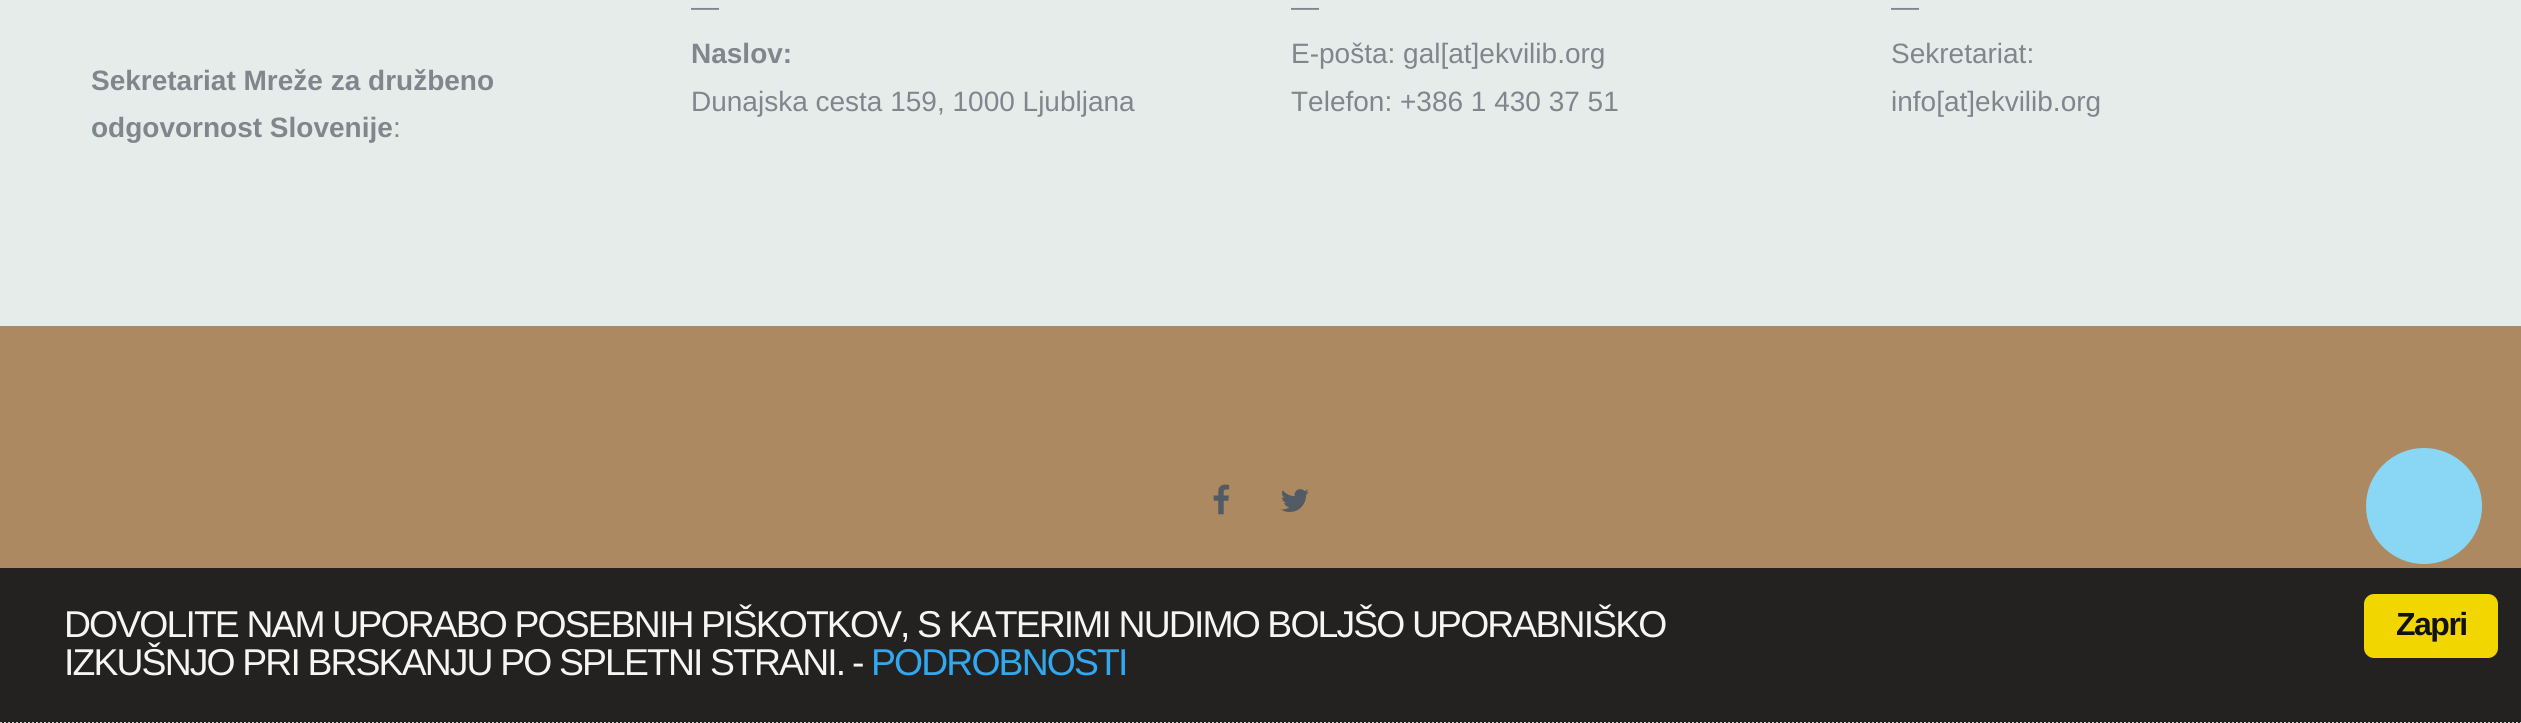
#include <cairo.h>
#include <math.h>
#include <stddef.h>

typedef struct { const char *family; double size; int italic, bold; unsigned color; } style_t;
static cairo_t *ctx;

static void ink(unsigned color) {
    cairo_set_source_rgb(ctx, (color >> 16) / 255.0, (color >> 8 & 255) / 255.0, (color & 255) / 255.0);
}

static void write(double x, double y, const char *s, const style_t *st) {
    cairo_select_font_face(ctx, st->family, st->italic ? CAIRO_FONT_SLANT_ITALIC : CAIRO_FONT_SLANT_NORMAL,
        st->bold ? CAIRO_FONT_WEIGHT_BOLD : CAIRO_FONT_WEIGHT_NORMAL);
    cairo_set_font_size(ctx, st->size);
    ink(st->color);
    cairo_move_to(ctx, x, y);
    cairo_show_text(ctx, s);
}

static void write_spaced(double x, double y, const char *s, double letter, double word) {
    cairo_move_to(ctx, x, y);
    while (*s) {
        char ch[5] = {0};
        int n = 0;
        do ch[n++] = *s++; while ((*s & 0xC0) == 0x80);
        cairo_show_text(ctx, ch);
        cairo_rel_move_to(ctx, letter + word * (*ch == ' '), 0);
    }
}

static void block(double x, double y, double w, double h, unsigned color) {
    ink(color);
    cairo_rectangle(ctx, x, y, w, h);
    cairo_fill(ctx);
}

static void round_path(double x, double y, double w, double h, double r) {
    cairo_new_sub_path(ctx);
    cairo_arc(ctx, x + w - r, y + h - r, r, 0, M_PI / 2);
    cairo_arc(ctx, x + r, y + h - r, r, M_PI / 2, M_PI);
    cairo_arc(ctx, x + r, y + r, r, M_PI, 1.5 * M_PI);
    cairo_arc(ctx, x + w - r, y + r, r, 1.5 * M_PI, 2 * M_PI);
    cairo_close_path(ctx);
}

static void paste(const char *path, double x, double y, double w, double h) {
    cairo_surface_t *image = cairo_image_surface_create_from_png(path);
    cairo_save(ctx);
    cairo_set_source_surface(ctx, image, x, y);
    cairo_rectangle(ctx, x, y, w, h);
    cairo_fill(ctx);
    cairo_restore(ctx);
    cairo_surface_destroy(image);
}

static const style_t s1 = {"Liberation Sans", 28, 0, 1, 0x7e878c};
static const style_t s2 = {"Liberation Sans", 28, 0, 0, 0x7e878c};

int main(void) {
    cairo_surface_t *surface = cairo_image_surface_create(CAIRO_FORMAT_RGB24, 2521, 723);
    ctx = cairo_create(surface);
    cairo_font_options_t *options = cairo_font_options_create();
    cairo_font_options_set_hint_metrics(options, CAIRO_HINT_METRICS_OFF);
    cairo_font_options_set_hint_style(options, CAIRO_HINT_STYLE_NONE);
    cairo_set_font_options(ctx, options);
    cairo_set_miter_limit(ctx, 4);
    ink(0xac8961);
    cairo_paint(ctx);
    block(0, 568, 2521, 155, 0x242220);
    block(0, 0, 2521, 326, 0xe6ecea);
    write(91, 90, "Sekretariat Mreže za družbeno", &s1);
    write(91, 137, "odgovornost Slovenije", &s1);
    write(393, 137, ":", &s2);
    write(691, 16, "—", &s2);
    write(691, 63, "Naslov:", &s1);
    write(691, 111, "Dunajska cesta 159, 1000 Ljubljana", &s2);
    write(1291, 16, "—", &s2);
    write(1291, 63, "E-pošta: gal[at]ekvilib.org", &s2);
    write(1291, 111, "Telefon: +386 1 430 37 51", &s2);
    write(1891, 16, "—", &s2);
    write(1891, 63, "Sekretariat:", &s2);
    write(1891, 111, "info[at]ekvilib.org", &s2);
    paste("pic1.png", 1213, 484, 17, 31);
    paste("pic2.png", 1281, 489, 28, 23);
    ink(0x89d7f4);
    cairo_arc(ctx, 2424, 506, 58, 0, 2 * M_PI);
    cairo_fill(ctx);
    cairo_new_path(ctx);
    cairo_move_to(ctx, 0, 723);
    cairo_line_to(ctx, 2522, 723);
    ink(0xcccccc);
    cairo_set_dash(ctx, (double[]){2, 2}, 2, 0);
    cairo_stroke(ctx);
    cairo_set_font_size(ctx, 37.35);
    ink(0xf5f5f5);
    write_spaced(64, 637, "DOVOLITE NAM UPORABO POSEBNIH PIŠKOTKOV, S KATERIMI NUDIMO BOLJŠO UPORABNIŠKO", -1.87, 0);
    write_spaced(64, 675, "IZKUŠNJO PRI BRSKANJU PO SPLETNI STRANI.", -1.87, 0);
    write_spaced(852, 675, "-", -1.87, 0);
    ink(0x31a8f0);
    write_spaced(871, 675, "PODROBNOSTI", -1.87, 0);
    ink(0xf1d600);
    round_path(2364, 594, 134, 64, 10);
    cairo_fill(ctx);
    cairo_select_font_face(ctx, "Liberation Sans", CAIRO_FONT_SLANT_NORMAL, CAIRO_FONT_WEIGHT_BOLD);
    cairo_set_font_size(ctx, 32);
    ink(0x111111);
    write_spaced(2396, 635, "Zapri", -1.5, 0);
    cairo_surface_write_to_png(surface, "screenshot.png");
    cairo_font_options_destroy(options);
    cairo_destroy(ctx);
    cairo_surface_destroy(surface);
    return 0;
}
